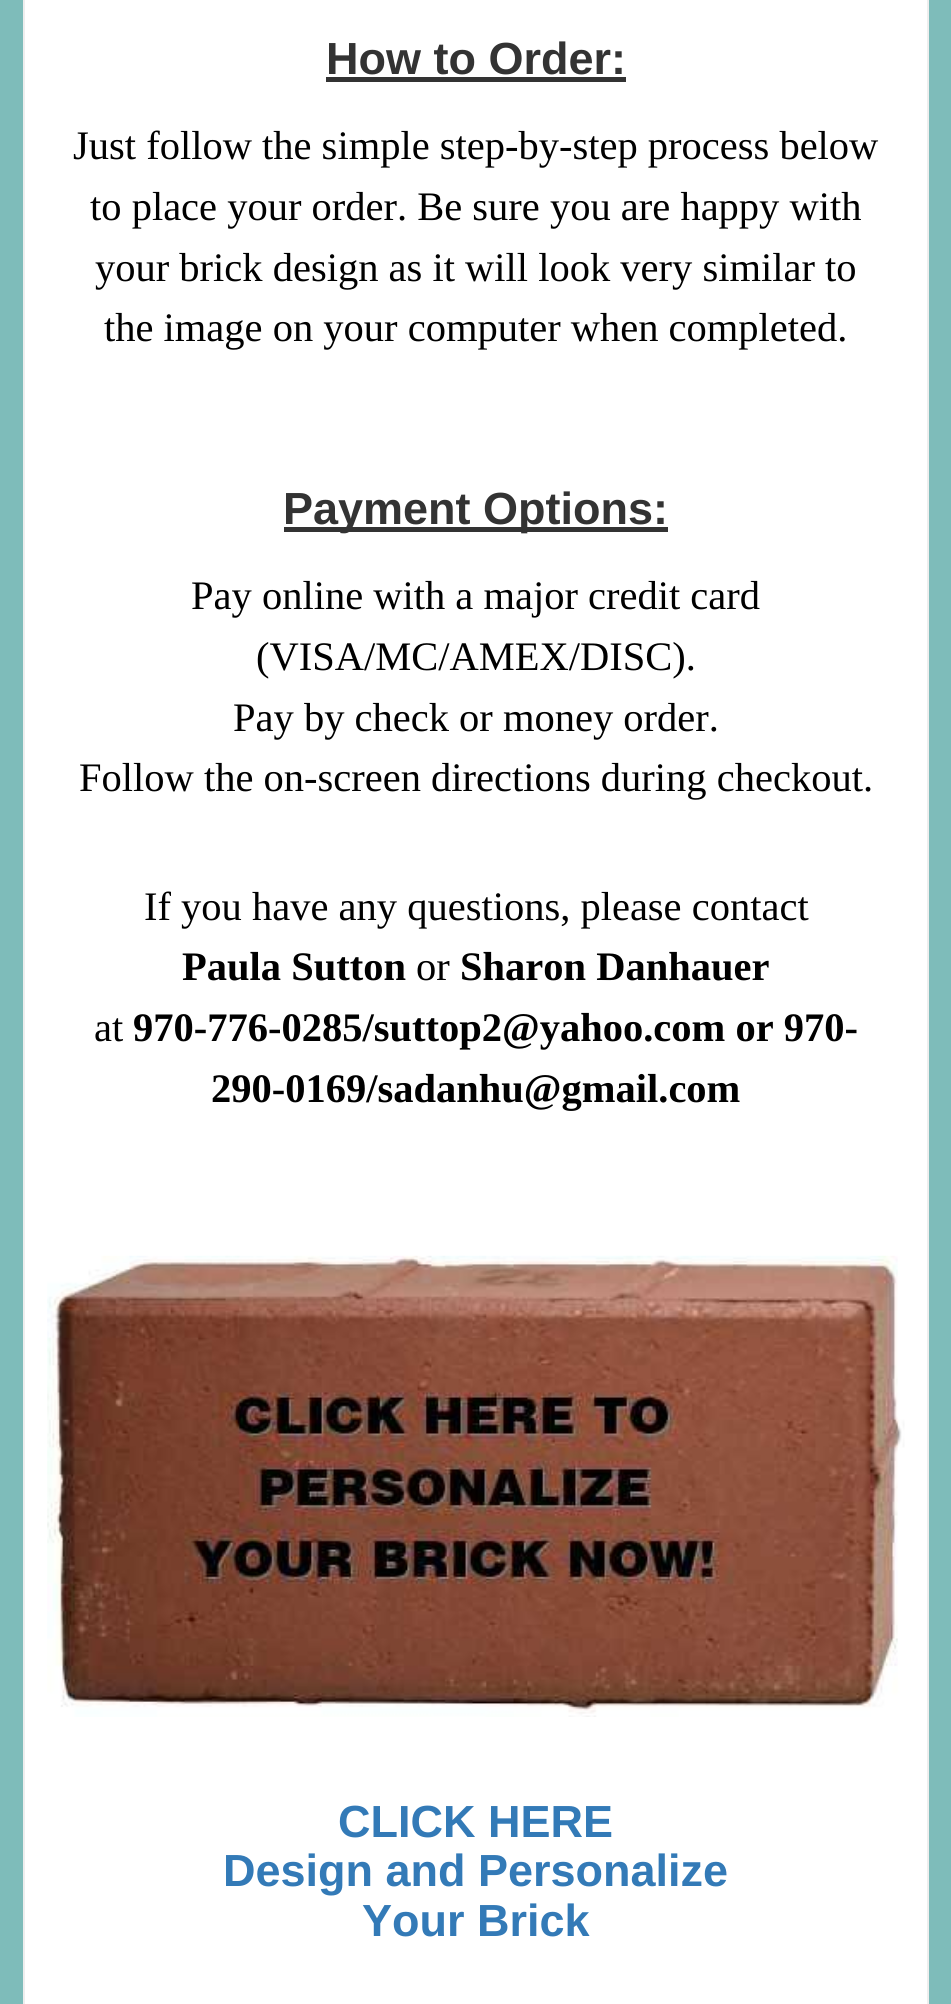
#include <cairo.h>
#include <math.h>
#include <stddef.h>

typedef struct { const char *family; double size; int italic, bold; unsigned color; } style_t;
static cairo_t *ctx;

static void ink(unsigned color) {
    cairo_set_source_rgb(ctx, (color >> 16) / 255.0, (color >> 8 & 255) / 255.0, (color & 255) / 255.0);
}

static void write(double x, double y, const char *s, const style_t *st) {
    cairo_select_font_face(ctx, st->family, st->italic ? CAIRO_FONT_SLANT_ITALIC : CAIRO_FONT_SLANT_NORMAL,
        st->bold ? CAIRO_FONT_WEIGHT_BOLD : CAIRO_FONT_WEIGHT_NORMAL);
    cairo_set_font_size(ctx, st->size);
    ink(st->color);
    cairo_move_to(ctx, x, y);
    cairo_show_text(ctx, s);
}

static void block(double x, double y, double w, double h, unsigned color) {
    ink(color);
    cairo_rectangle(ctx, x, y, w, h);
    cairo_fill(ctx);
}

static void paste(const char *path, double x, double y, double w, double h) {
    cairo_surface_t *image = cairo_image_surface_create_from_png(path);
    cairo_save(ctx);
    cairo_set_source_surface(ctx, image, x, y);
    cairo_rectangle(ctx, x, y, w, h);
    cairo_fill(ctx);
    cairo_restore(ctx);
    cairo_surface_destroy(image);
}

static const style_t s1 = {"Liberation Sans", 45, 0, 1, 0x333333};
static const style_t s2 = {"Liberation Serif", 40.5, 0, 0, 0x000000};
static const style_t s3 = {"Liberation Serif", 40.5, 0, 1, 0x000000};
static const style_t s4 = {"Liberation Sans", 45, 0, 1, 0x337ab7};

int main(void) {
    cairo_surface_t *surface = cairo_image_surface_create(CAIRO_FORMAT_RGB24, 951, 2004);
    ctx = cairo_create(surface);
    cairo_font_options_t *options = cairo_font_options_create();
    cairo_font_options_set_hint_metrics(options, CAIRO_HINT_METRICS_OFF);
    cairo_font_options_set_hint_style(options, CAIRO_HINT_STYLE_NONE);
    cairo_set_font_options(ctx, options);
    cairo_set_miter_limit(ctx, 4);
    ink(0x7ebcba);
    cairo_paint(ctx);
    ink(0xffffff);
    cairo_rectangle(ctx, 24, -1, 904, 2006);
    cairo_fill_preserve(ctx);
    ink(0xeeeeee);
    cairo_stroke(ctx);
    write(326, 74, "How to Order:", &s1);
    block(326, 77, 300, 5, 0x333333);
    write(73, 159, "Just follow the simple step-by-step process below", &s2);
    write(90, 220, "to place your order. Be sure you are happy with", &s2);
    write(95, 281, "your brick design as it will look very similar to", &s2);
    write(104, 341, "the image on your computer when completed.", &s2);
    block(284, 527, 384, 5, 0x333333);
    write(283, 524, "Payment Options:", &s1);
    write(191, 609, "Pay online with a major credit card", &s2);
    write(256, 670, "(VISA/MC/AMEX/DISC).", &s2);
    write(233, 731, "Pay by check or money order.", &s2);
    write(79, 791, "Follow the on-screen directions during checkout.", &s2);
    write(144, 920, "If you have any questions, please contact", &s2);
    write(182, 980, "Paula Sutton", &s3);
    write(416, 980, "or", &s2);
    write(460, 980, "Sharon Danhauer", &s3);
    write(94, 1041, "at", &s2);
    write(133, 1041, "970-776-0285/suttop2@yahoo.com or 970-", &s3);
    write(211, 1102, "290-0169/sadanhu@gmail.com", &s3);
    paste("pic1.png", 47, 1255, 858, 462);
    write(338, 1837, "CLICK HERE", &s4);
    write(223, 1886, "Design and Personalize", &s4);
    write(362, 1936, "Your Brick", &s4);
    cairo_surface_write_to_png(surface, "screenshot.png");
    cairo_font_options_destroy(options);
    cairo_destroy(ctx);
    cairo_surface_destroy(surface);
    return 0;
}
